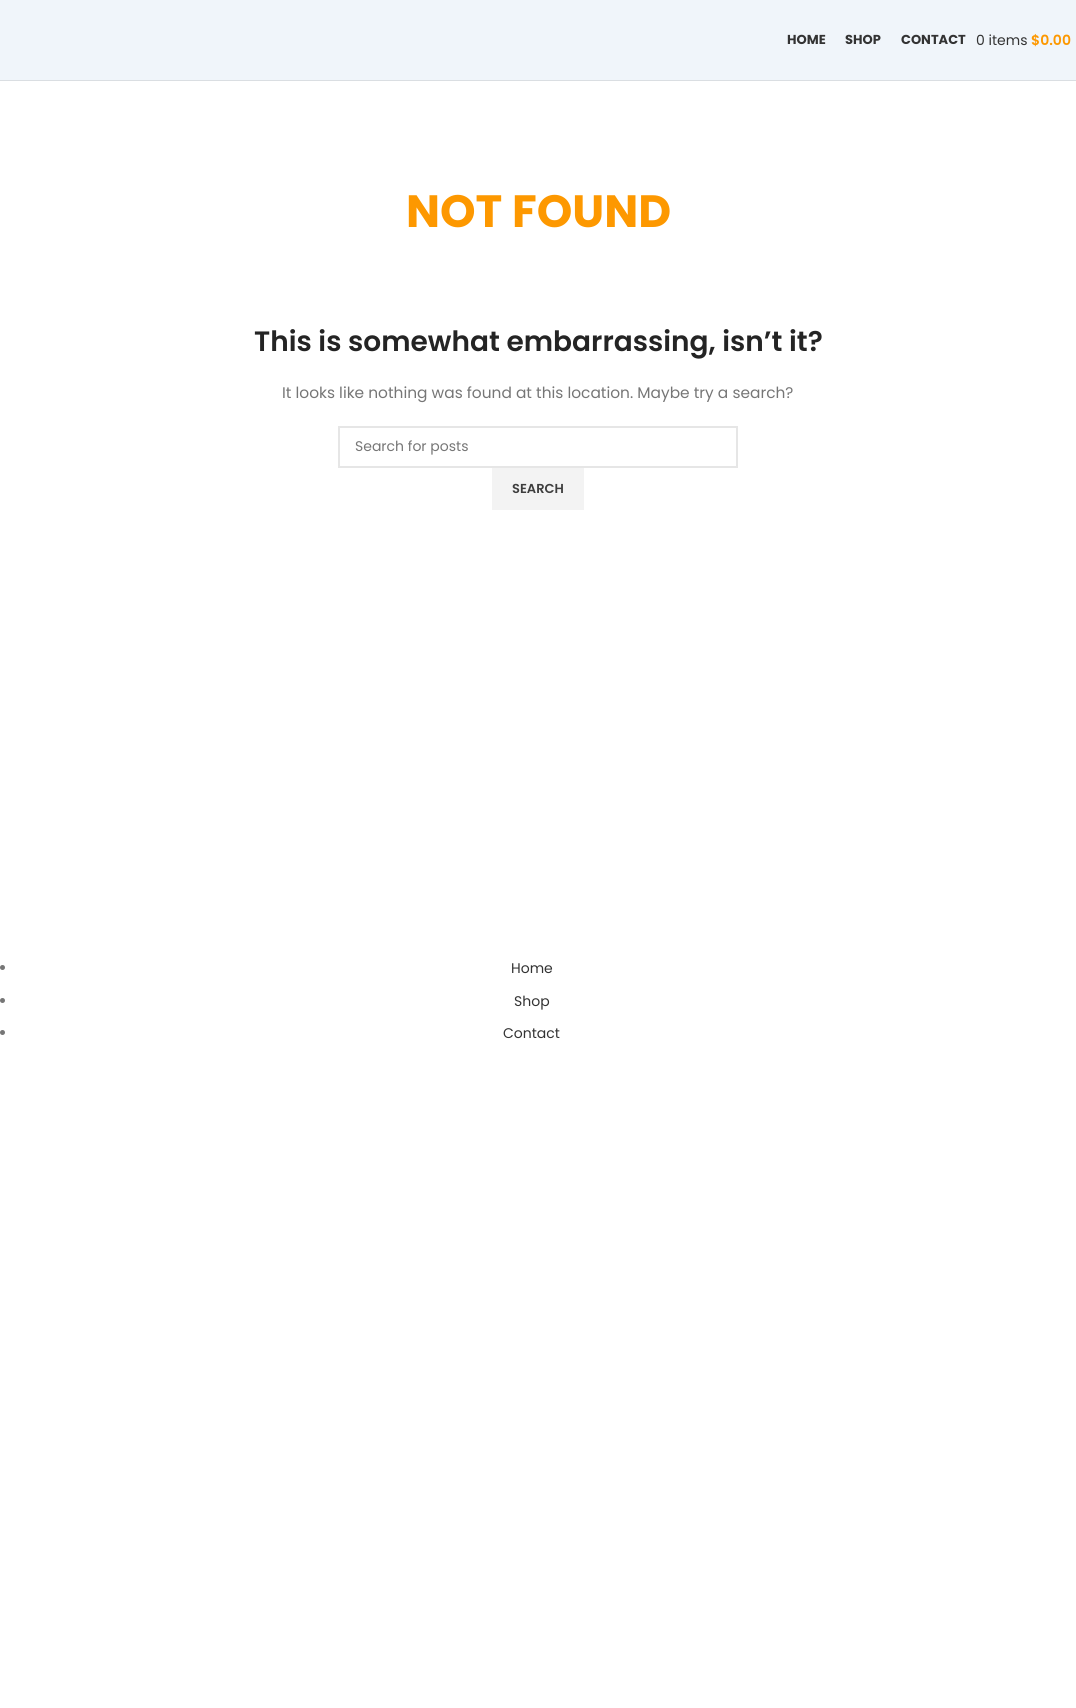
#include <cairo.h>
#include <math.h>
#include <stddef.h>

typedef struct { const char *family; double size; int italic, bold; unsigned color; } style_t;
static cairo_t *ctx;

static void ink(unsigned color) {
    cairo_set_source_rgb(ctx, (color >> 16) / 255.0, (color >> 8 & 255) / 255.0, (color & 255) / 255.0);
}

static void write(double x, double y, const char *s, const style_t *st) {
    cairo_select_font_face(ctx, st->family, st->italic ? CAIRO_FONT_SLANT_ITALIC : CAIRO_FONT_SLANT_NORMAL,
        st->bold ? CAIRO_FONT_WEIGHT_BOLD : CAIRO_FONT_WEIGHT_NORMAL);
    cairo_set_font_size(ctx, st->size);
    ink(st->color);
    cairo_move_to(ctx, x, y);
    cairo_show_text(ctx, s);
}

static void block(double x, double y, double w, double h, unsigned color) {
    ink(color);
    cairo_rectangle(ctx, x, y, w, h);
    cairo_fill(ctx);
}

static const style_t s1 = {"Poppins", 13, 0, 1, 0x333333};
static const style_t s2 = {"Poppins", 14, 0, 0, 0x333333};
static const style_t s3 = {"Poppins SemiBold", 14, 0, 0, 0xfd9800};
static const style_t s4 = {"Poppins", 45.25, 0, 1, 0xfd9800};
static const style_t s5 = {"Poppins SemiBold", 28, 0, 0, 0x242424};
static const style_t s6 = {"Poppins", 15.4, 0, 0, 0x767676};
static const style_t s7 = {"Poppins", 14, 0, 0, 0x767676};
static const style_t s8 = {"Poppins SemiBold", 13, 0, 0, 0x3e3e3e};

int main(void) {
    cairo_surface_t *surface = cairo_image_surface_create(CAIRO_FORMAT_RGB24, 1076, 1708);
    ctx = cairo_create(surface);
    cairo_font_options_t *options = cairo_font_options_create();
    cairo_font_options_set_hint_metrics(options, CAIRO_HINT_METRICS_OFF);
    cairo_font_options_set_hint_style(options, CAIRO_HINT_STYLE_NONE);
    cairo_set_font_options(ctx, options);
    cairo_set_miter_limit(ctx, 4);
    ink(0xffffff);
    cairo_paint(ctx);
    block(0, 0, 1076, 80, 0xf0f5fa);
    block(0, 80, 1076, 1, 0xdadee2);
    write(787, 44, "HOME", &s1);
    write(845, 44, "SHOP", &s1);
    write(901, 44, "CONTACT", &s1);
    write(976, 45, "0 items", &s2);
    write(1031, 45, "$0.00", &s3);
    write(406, 227, "NOT FOUND", &s4);
    write(254, 351, "This is somewhat embarrassing, isn’t it?", &s5);
    write(282, 398, "It looks like nothing was found at this location. Maybe try a search?", &s6);
    cairo_rectangle(ctx, 339, 427, 398, 40);
    ink(0xe6e6e6);
    cairo_stroke(ctx);
    write(355, 451, "Search for posts", &s7);
    block(492, 468, 92, 42, 0xf3f3f3);
    write(512, 493, "SEARCH", &s8);
    ink(0x767676);
    cairo_new_path(ctx);
    cairo_arc(ctx, 2.5, 967.5, 2.5, 0, 2 * M_PI);
    cairo_fill(ctx);
    write(511, 973, "Home", &s2);
    ink(0x767676);
    cairo_new_path(ctx);
    cairo_arc(ctx, 2.5, 1000.5, 2.5, 0, 2 * M_PI);
    cairo_fill(ctx);
    write(514, 1006, "Shop", &s2);
    ink(0x767676);
    cairo_new_path(ctx);
    cairo_arc(ctx, 2.5, 1032.5, 2.5, 0, 2 * M_PI);
    cairo_fill(ctx);
    write(503, 1038, "Contact", &s2);
    cairo_surface_write_to_png(surface, "screenshot.png");
    cairo_font_options_destroy(options);
    cairo_destroy(ctx);
    cairo_surface_destroy(surface);
    return 0;
}
